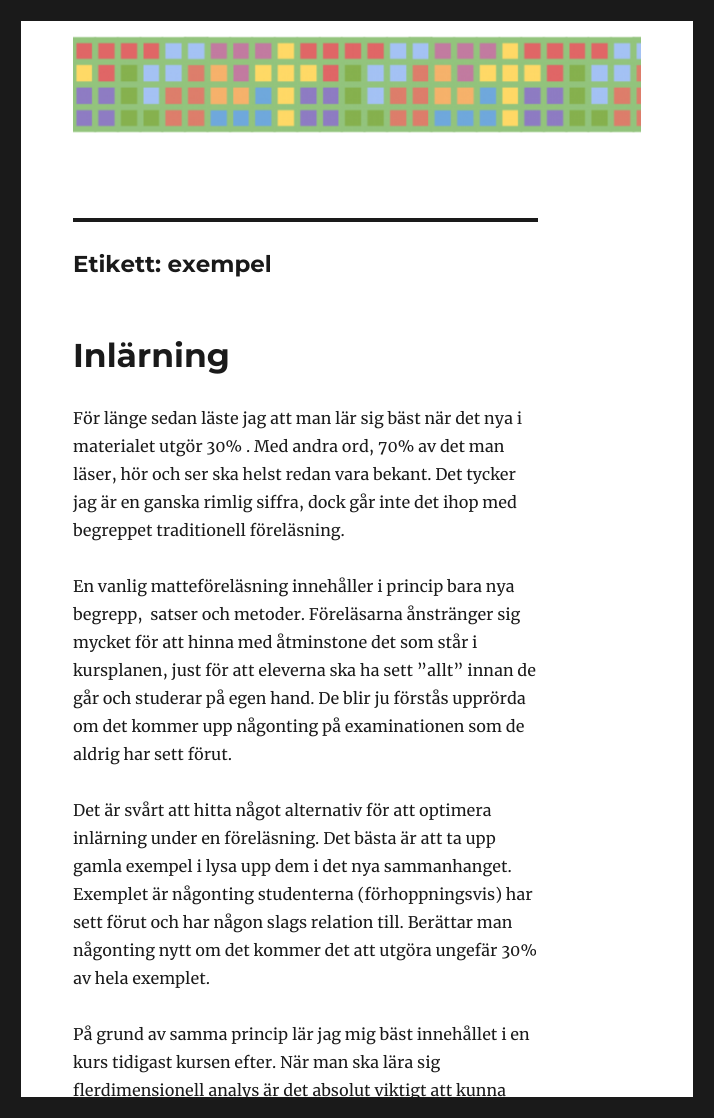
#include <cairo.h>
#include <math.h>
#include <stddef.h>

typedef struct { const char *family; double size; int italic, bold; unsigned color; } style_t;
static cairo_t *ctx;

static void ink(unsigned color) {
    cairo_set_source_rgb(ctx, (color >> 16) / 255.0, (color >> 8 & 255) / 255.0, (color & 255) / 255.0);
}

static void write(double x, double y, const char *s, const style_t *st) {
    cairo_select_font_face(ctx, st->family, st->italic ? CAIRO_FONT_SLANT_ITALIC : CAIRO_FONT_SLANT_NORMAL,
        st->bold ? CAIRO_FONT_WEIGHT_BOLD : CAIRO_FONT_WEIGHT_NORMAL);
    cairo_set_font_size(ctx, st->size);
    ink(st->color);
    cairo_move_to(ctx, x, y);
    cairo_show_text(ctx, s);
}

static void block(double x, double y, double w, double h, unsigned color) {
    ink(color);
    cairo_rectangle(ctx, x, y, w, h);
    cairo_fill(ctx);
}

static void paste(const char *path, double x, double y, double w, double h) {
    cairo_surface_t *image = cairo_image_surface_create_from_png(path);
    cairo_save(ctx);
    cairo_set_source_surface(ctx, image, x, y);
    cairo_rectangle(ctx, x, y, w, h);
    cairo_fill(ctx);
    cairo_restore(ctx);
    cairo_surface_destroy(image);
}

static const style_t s1 = {"Montserrat Thin", 23, 0, 0, 0x1a1a1a};
static const style_t s2 = {"Montserrat Thin", 33, 0, 0, 0x1a1a1a};
static const style_t s3 = {"Merriweather", 16, 0, 0, 0x1a1a1a};

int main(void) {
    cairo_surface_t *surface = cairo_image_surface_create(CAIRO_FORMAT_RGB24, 714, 1118);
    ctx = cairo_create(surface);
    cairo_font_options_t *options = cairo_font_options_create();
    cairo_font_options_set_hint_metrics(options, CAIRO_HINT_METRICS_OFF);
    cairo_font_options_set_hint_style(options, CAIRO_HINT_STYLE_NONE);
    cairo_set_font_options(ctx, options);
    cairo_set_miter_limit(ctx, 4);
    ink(0x1a1a1a);
    cairo_paint(ctx);
    block(21, 21, 672, 1076, 0xffffff);
    paste("pic1.png", 73, 36, 568, 97);
    block(73, 218, 465, 4, 0x1a1a1a);
    write(73, 272, "Etikett: exempel", &s1);
    write(73, 367, "Inlärning", &s2);
    write(73, 424, "För länge sedan läste jag att man lär sig bäst när det nya i", &s3);
    write(73, 452, "materialet utgör 30% . Med andra ord, 70% av det man", &s3);
    write(73, 480, "läser, hör och ser ska helst redan vara bekant. Det tycker", &s3);
    write(73, 508, "jag är en ganska rimlig siffra, dock går inte det ihop med", &s3);
    write(73, 536, "begreppet traditionell föreläsning.", &s3);
    write(73, 592, "En vanlig matteföreläsning innehåller i princip bara nya", &s3);
    write(73, 620, "begrepp,  satser och metoder. Föreläsarna ånstränger sig", &s3);
    write(73, 648, "mycket för att hinna med åtminstone det som står i", &s3);
    write(73, 676, "kursplanen, just för att eleverna ska ha sett ”allt” innan de", &s3);
    write(73, 704, "går och studerar på egen hand. De blir ju förstås upprörda", &s3);
    write(73, 732, "om det kommer upp någonting på examinationen som de", &s3);
    write(73, 760, "aldrig har sett förut.", &s3);
    write(73, 816, "Det är svårt att hitta något alternativ för att optimera", &s3);
    write(73, 844, "inlärning under en föreläsning. Det bästa är att ta upp", &s3);
    write(73, 872, "gamla exempel i lysa upp dem i det nya sammanhanget.", &s3);
    write(73, 900, "Exemplet är någonting studenterna (förhoppningsvis) har", &s3);
    write(73, 928, "sett förut och har någon slags relation till. Berättar man", &s3);
    write(73, 956, "någonting nytt om det kommer det att utgöra ungefär 30%", &s3);
    write(73, 984, "av hela exemplet.", &s3);
    write(73, 1040, "På grund av samma princip lär jag mig bäst innehållet i en", &s3);
    write(73, 1068, "kurs tidigast kursen efter. När man ska lära sig", &s3);
    write(73, 1096, "flerdimensionell analys är det absolut viktigt att kunna", &s3);
    cairo_surface_write_to_png(surface, "screenshot.png");
    cairo_font_options_destroy(options);
    cairo_destroy(ctx);
    cairo_surface_destroy(surface);
    return 0;
}
